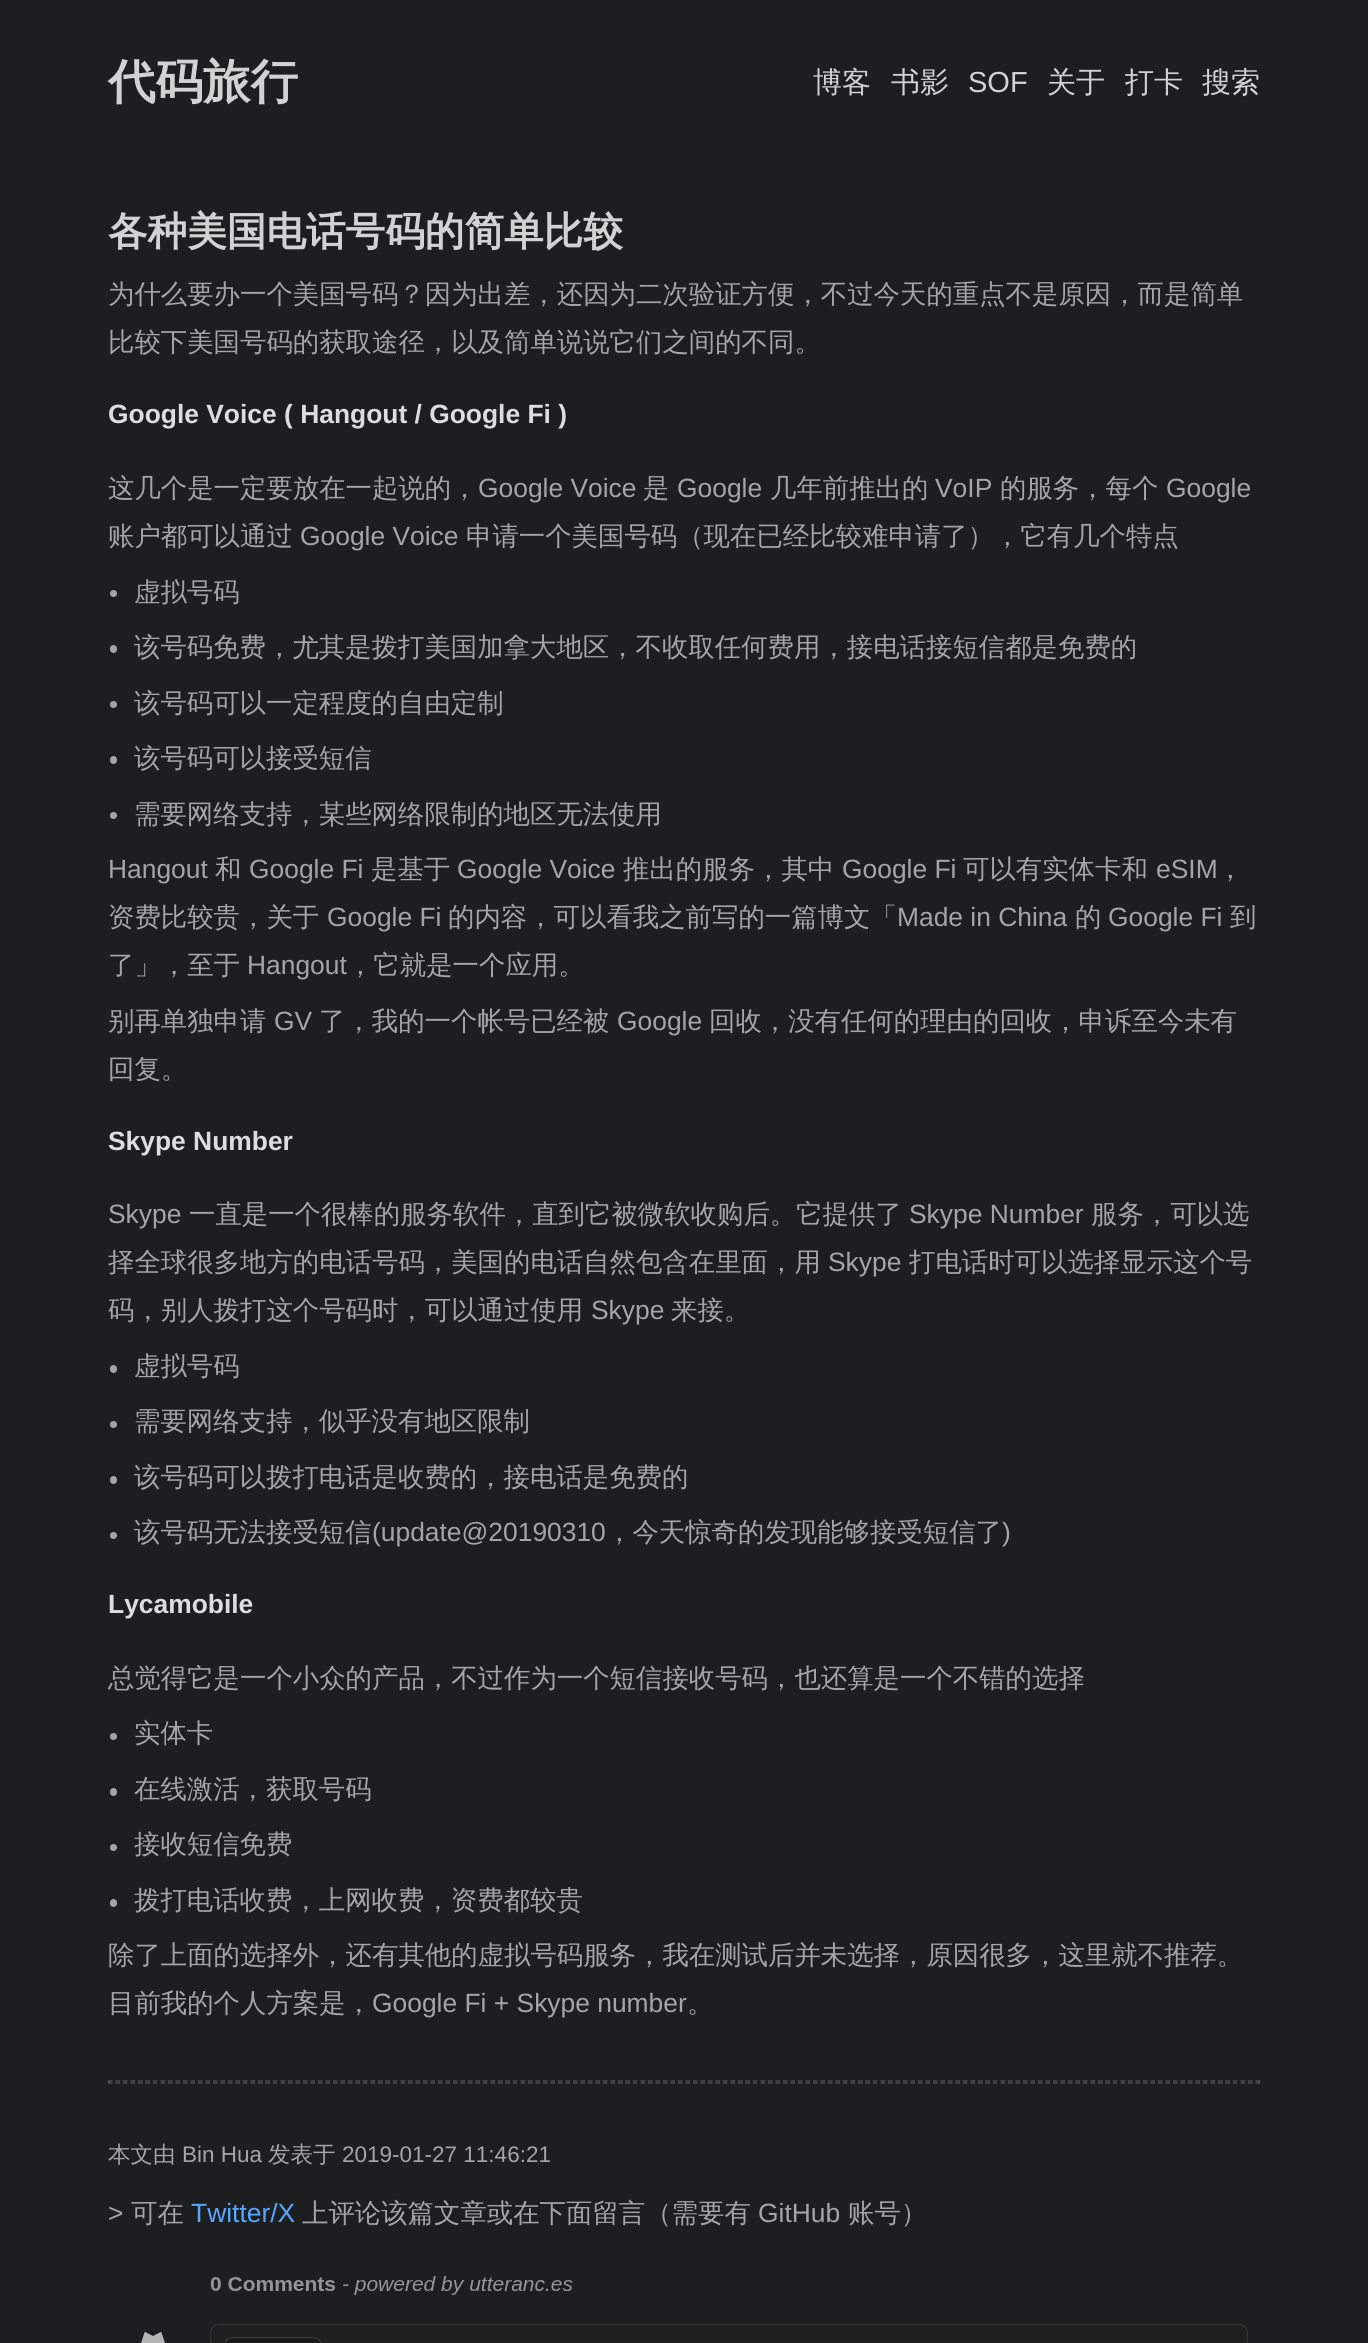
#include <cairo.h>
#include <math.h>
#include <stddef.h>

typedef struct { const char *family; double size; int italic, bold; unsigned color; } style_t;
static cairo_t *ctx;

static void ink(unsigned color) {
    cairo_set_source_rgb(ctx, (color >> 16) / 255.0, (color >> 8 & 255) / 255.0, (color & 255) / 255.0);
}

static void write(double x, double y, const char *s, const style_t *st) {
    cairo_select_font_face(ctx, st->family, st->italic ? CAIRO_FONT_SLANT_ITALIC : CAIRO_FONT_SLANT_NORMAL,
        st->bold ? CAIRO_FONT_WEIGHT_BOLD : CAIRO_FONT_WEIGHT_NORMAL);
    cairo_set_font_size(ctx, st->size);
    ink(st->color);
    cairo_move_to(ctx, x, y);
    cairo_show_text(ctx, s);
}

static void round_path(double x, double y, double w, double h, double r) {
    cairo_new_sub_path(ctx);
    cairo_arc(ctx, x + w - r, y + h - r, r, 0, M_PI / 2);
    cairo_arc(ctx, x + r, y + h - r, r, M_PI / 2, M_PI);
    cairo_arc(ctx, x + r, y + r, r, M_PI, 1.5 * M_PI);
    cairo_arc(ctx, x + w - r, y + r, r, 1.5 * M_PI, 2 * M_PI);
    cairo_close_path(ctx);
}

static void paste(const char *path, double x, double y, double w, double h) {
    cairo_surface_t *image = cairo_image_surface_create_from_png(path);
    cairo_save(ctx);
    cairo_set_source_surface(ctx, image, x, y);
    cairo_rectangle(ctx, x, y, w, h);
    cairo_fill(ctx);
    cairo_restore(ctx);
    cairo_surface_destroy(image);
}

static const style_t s1 = {"WenQuanYi Zen Hei", 47.5, 0, 1, 0xd2d2d2};
static const style_t s2 = {"WenQuanYi Zen Hei Medium", 29, 0, 0, 0xd2d2d2};
static const style_t s3 = {"Liberation Sans", 29, 0, 0, 0xd2d2d2};
static const style_t s4 = {"WenQuanYi Zen Hei", 39.6, 0, 1, 0xd2d2d2};
static const style_t s5 = {"WenQuanYi Zen Hei Medium", 26.4, 0, 0, 0xa5a5a6};
static const style_t s6 = {"Liberation Sans", 26.4, 0, 1, 0xddddde};
static const style_t s7 = {"Liberation Sans", 26.4, 0, 0, 0xa5a5a6};
static const style_t s8 = {"WenQuanYi Zen Hei Medium", 22.5, 0, 0, 0xa5a5a6};
static const style_t s9 = {"Liberation Sans", 22.5, 0, 0, 0xa5a5a6};
static const style_t s10 = {"Liberation Sans", 26.4, 0, 0, 0x58a6ff};

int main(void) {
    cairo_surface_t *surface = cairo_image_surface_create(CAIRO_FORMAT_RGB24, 1368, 2343);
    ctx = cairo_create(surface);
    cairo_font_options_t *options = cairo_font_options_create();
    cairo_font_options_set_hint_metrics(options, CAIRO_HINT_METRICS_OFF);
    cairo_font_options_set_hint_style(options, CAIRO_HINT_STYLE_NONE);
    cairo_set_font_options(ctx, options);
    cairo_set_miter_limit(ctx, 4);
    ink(0x1d1e20);
    cairo_paint(ctx);
    write(108, 98, "代码旅行", &s1);
    write(813, 92, "博客", &s2);
    write(891, 92, "书影", &s2);
    write(968, 92, "SOF", &s3);
    write(1047, 92, "关于", &s2);
    write(1125, 92, "打卡", &s2);
    write(1202, 92, "搜索", &s2);
    write(108, 245, "各种美国电话号码的简单比较", &s4);
    write(108, 303, "为什么要办一个美国号码？因为出差，还因为二次验证方便，不过今天的重点不是原因，而是简单", &s5);
    write(108, 351, "比较下美国号码的获取途径，以及简单说说它们之间的不同。", &s5);
    write(108, 423, "Google Voice ( Hangout / Google Fi )", &s6);
    write(108, 497, "这几个是一定要放在一起说的，", &s5);
    write(478, 497, "Google Voice", &s7);
    write(643, 497, "是", &s5);
    write(677, 497, "Google", &s7);
    write(770, 497, "几年前推出的", &s5);
    write(935, 497, "VoIP", &s7);
    write(1000, 497, "的服务，每个", &s5);
    write(1166, 497, "Google", &s7);
    write(108, 545, "账户都可以通过", &s5);
    write(300, 545, "Google Voice", &s7);
    write(466, 545, "申请一个美国号码（现在已经比较难申请了），它有几个特点", &s5);
    cairo_new_path(ctx);
    cairo_arc(ctx, 113.5, 593.5, 3.5, 0, 2 * M_PI);
    cairo_fill(ctx);
    write(134, 601, "虚拟号码", &s5);
    round_path(110, 645, 7, 8, 3.5);
    cairo_fill(ctx);
    write(134, 656, "该号码免费，尤其是拨打美国加拿大地区，不收取任何费用，接电话接短信都是免费的", &s5);
    cairo_new_path(ctx);
    cairo_arc(ctx, 113.5, 704.5, 3.5, 0, 2 * M_PI);
    cairo_fill(ctx);
    write(134, 712, "该号码可以一定程度的自由定制", &s5);
    round_path(110, 756, 7, 8, 3.5);
    cairo_fill(ctx);
    write(134, 767, "该号码可以接受短信", &s5);
    cairo_new_path(ctx);
    cairo_arc(ctx, 113.5, 815.5, 3.5, 0, 2 * M_PI);
    cairo_fill(ctx);
    write(134, 823, "需要网络支持，某些网络限制的地区无法使用", &s5);
    write(108, 878, "Hangout", &s7);
    write(215, 878, "和", &s5);
    write(249, 878, "Google Fi", &s7);
    write(371, 878, "是基于", &s5);
    write(457, 878, "Google Voice", &s7);
    write(623, 878, "推出的服务，其中", &s5);
    write(842, 878, "Google Fi", &s7);
    write(963, 878, "可以有实体卡和", &s5);
    write(1156, 878, "eSIM", &s7);
    write(1217, 878, "，", &s5);
    write(108, 926, "资费比较贵，关于", &s5);
    write(327, 926, "Google Fi", &s7);
    write(448, 926, "的内容，可以看我之前写的一篇博文「", &s5);
    write(897, 926, "Made in China", &s7);
    write(1075, 926, "的", &s5);
    write(1108, 926, "Google Fi", &s7);
    write(1230, 926, "到", &s5);
    write(108, 974, "了」，至于", &s5);
    write(247, 974, "Hangout", &s7);
    write(347, 974, "，它就是一个应用。", &s5);
    write(108, 1030, "别再单独申请", &s5);
    write(274, 1030, "GV", &s7);
    write(319, 1030, "了，我的一个帐号已经被", &s5);
    write(617, 1030, "Google", &s7);
    write(709, 1030, "回收，没有任何的理由的回收，申诉至今未有", &s5);
    write(108, 1078, "回复。", &s5);
    write(108, 1150, "Skype Number", &s6);
    write(108, 1223, "Skype", &s7);
    write(189, 1223, "一直是一个很棒的服务软件，直到它被微软收购后。它提供了", &s5);
    write(909, 1223, "Skype Number", &s7);
    write(1091, 1223, "服务，可以选", &s5);
    write(108, 1271, "择全球很多地方的电话号码，美国的电话自然包含在里面，用", &s5);
    write(828, 1271, "Skype", &s7);
    write(909, 1271, "打电话时可以选择显示这个号", &s5);
    write(108, 1319, "码，别人拨打这个号码时，可以通过使用", &s5);
    write(591, 1319, "Skype", &s7);
    write(671, 1319, "来接。", &s5);
    round_path(110, 1365, 7, 8, 3.5);
    cairo_fill(ctx);
    write(134, 1375, "虚拟号码", &s5);
    cairo_new_path(ctx);
    cairo_arc(ctx, 113.5, 1424.5, 3.5, 0, 2 * M_PI);
    cairo_fill(ctx);
    write(134, 1430, "需要网络支持，似乎没有地区限制", &s5);
    round_path(110, 1476, 7, 8, 3.5);
    cairo_fill(ctx);
    write(134, 1486, "该号码可以拨打电话是收费的，接电话是免费的", &s5);
    cairo_new_path(ctx);
    cairo_arc(ctx, 113.5, 1535.5, 3.5, 0, 2 * M_PI);
    cairo_fill(ctx);
    write(134, 1541, "该号码无法接受短信", &s5);
    write(372, 1541, "(update@20190310", &s7);
    write(606, 1541, "，今天惊奇的发现能够接受短信了", &s5);
    write(1002, 1541, ")", &s7);
    write(108, 1613, "Lycamobile", &s6);
    write(108, 1687, "总觉得它是一个小众的产品，不过作为一个短信接收号码，也还算是一个不错的选择", &s5);
    cairo_new_path(ctx);
    cairo_arc(ctx, 113.5, 1736.5, 3.5, 0, 2 * M_PI);
    cairo_fill(ctx);
    write(134, 1742, "实体卡", &s5);
    round_path(110, 1788, 7, 8, 3.5);
    cairo_fill(ctx);
    write(134, 1798, "在线激活，获取号码", &s5);
    cairo_new_path(ctx);
    cairo_arc(ctx, 113.5, 1847.5, 3.5, 0, 2 * M_PI);
    cairo_fill(ctx);
    write(134, 1853, "接收短信免费", &s5);
    round_path(110, 1899, 7, 8, 3.5);
    cairo_fill(ctx);
    write(134, 1909, "拨打电话收费，上网收费，资费都较贵", &s5);
    write(108, 1964, "除了上面的选择外，还有其他的虚拟号码服务，我在测试后并未选择，原因很多，这里就不推荐。", &s5);
    write(108, 2012, "目前我的个人方案是，", &s5);
    write(372, 2012, "Google Fi + Skype number", &s7);
    write(687, 2012, "。", &s5);
    cairo_new_path(ctx);
    cairo_move_to(ctx, 108, 2081);
    cairo_line_to(ctx, 1260, 2081);
    ink(0x4a4b4d);
    cairo_set_line_width(ctx, 1.5);
    cairo_set_dash(ctx, (double[]){4.5, 3}, 2, 0);
    cairo_stroke(ctx);
    cairo_set_source_rgba(ctx, 1, 1, 1, 0.2);
    cairo_new_path(ctx);
    cairo_move_to(ctx, 1260, 2080.5);
    cairo_line_to(ctx, 1260, 2083.5);
    cairo_line_to(ctx, 1258.5, 2082);
    cairo_close_path(ctx);
    cairo_fill(ctx);
    cairo_new_path(ctx);
    cairo_move_to(ctx, 108, 2083);
    cairo_line_to(ctx, 1260, 2083);
    cairo_stroke(ctx);
    ink(0x656668);
    cairo_new_path(ctx);
    cairo_move_to(ctx, 108, 2083.5);
    cairo_line_to(ctx, 108, 2080.5);
    cairo_line_to(ctx, 109.5, 2082);
    cairo_close_path(ctx);
    cairo_fill(ctx);
    write(108, 2162, "本文由", &s8);
    write(182, 2162, "Bin Hua", &s9);
    write(268, 2162, "发表于", &s8);
    write(342, 2162, "2019-01-27 11:46:21", &s9);
    write(108, 2222, ">", &s7);
    write(131, 2222, "可在", &s5);
    write(191, 2222, "Twitter/X", &s10);
    write(302, 2222, "上评论该篇文章或在下面留言（需要有", &s5);
    write(758, 2222, "GitHub", &s7);
    write(848, 2222, "账号）", &s5);
    paste("pic1.png", 141, 2276, 1107, 67);
    cairo_surface_write_to_png(surface, "screenshot.png");
    cairo_font_options_destroy(options);
    cairo_destroy(ctx);
    cairo_surface_destroy(surface);
    return 0;
}
